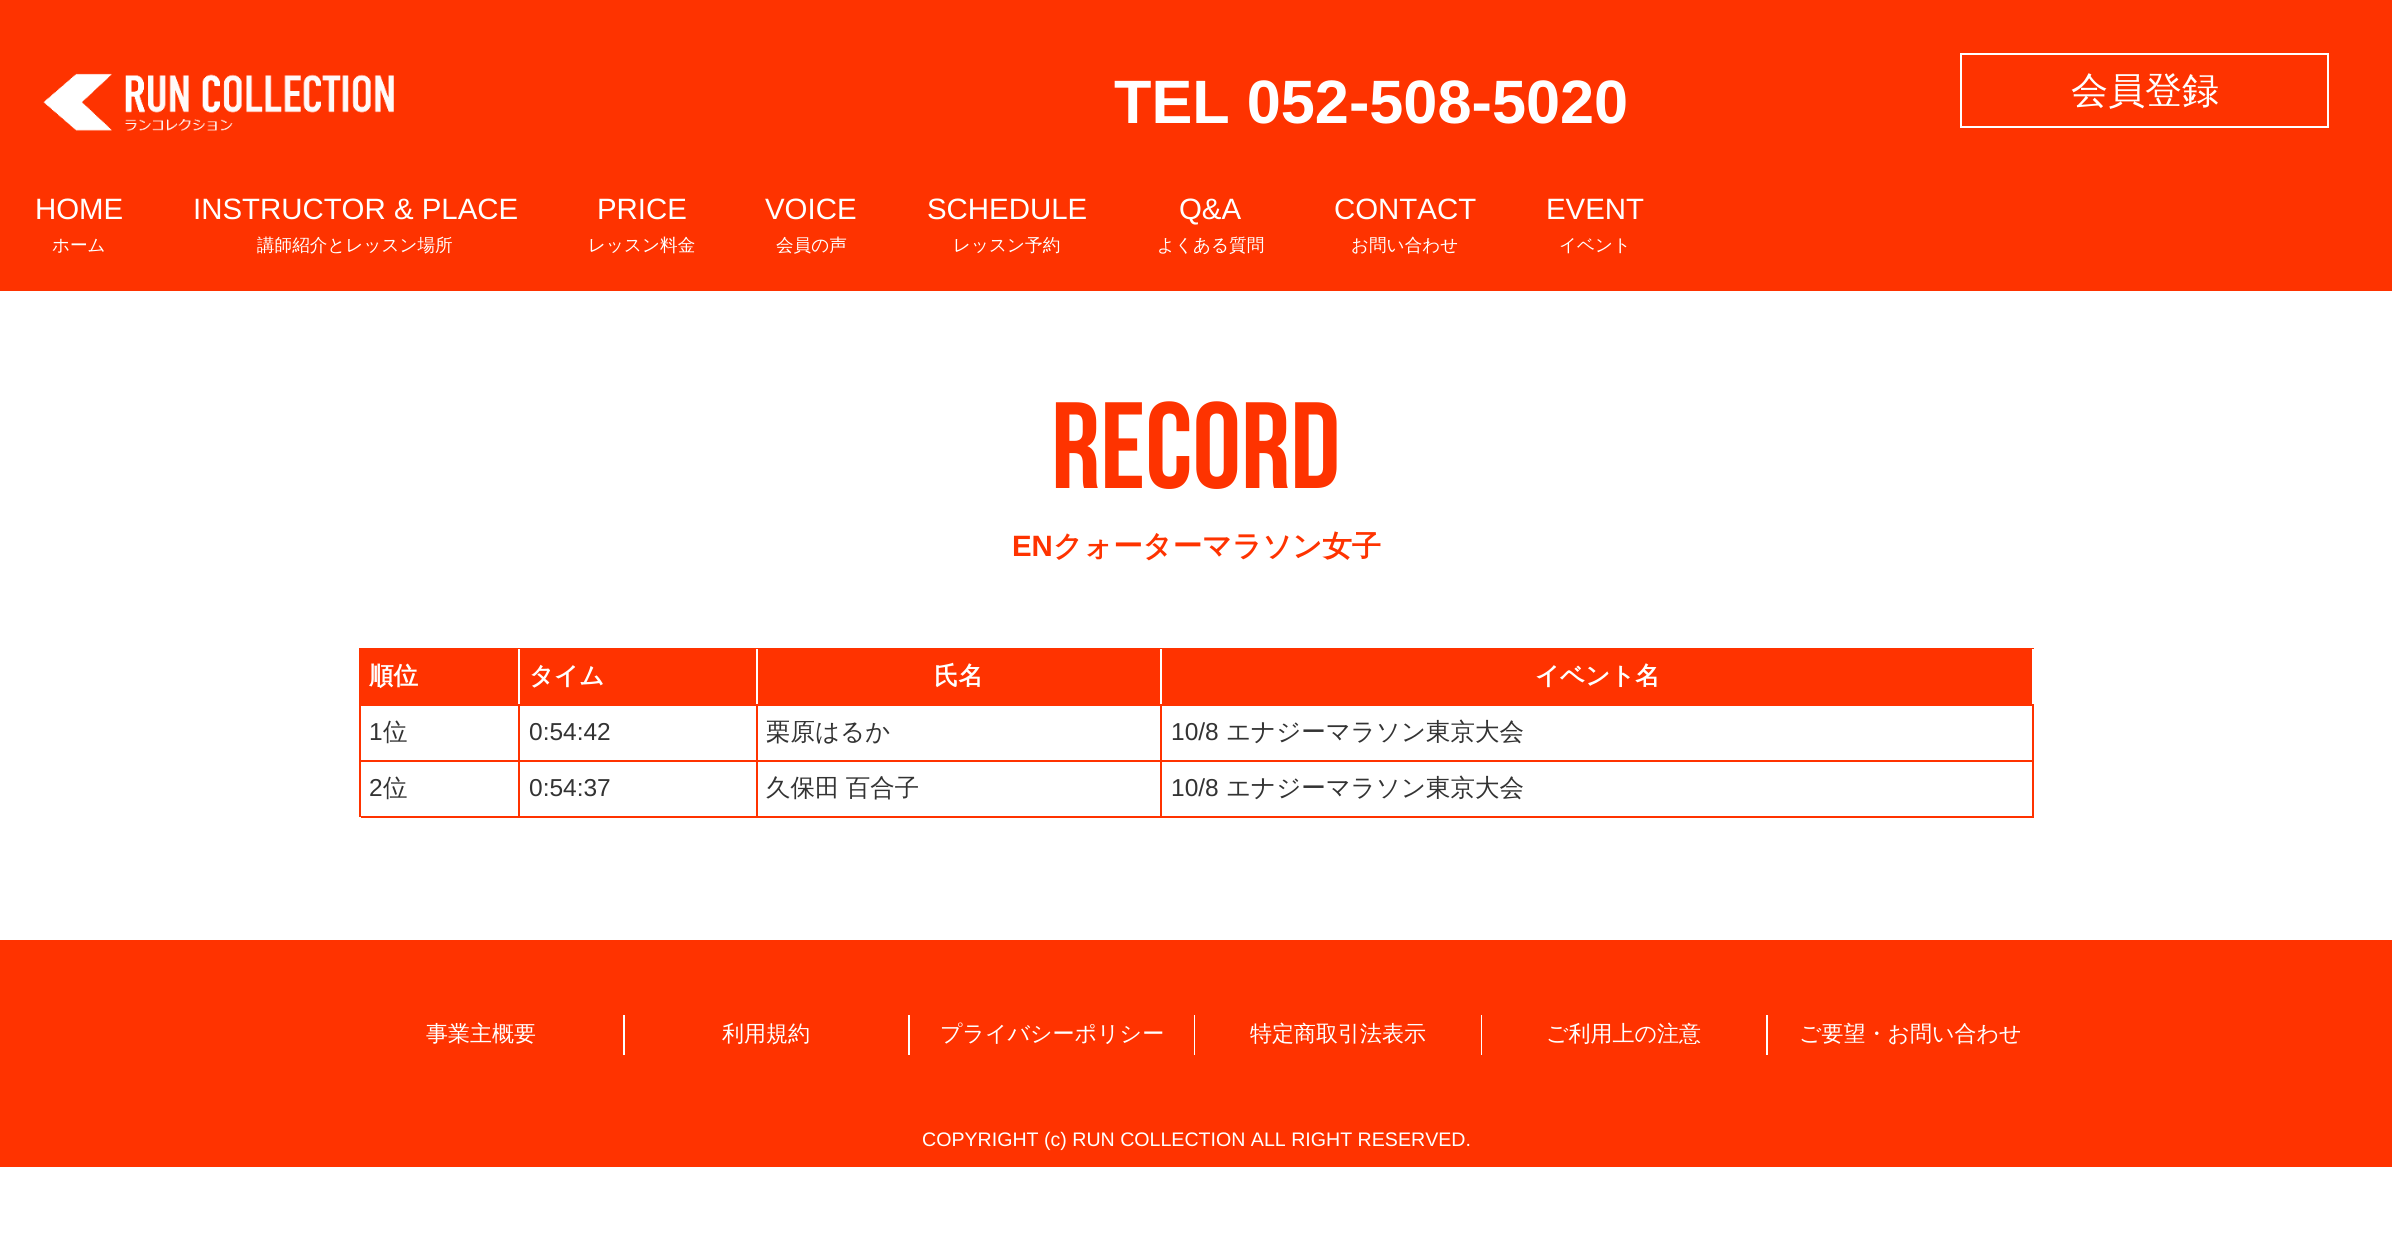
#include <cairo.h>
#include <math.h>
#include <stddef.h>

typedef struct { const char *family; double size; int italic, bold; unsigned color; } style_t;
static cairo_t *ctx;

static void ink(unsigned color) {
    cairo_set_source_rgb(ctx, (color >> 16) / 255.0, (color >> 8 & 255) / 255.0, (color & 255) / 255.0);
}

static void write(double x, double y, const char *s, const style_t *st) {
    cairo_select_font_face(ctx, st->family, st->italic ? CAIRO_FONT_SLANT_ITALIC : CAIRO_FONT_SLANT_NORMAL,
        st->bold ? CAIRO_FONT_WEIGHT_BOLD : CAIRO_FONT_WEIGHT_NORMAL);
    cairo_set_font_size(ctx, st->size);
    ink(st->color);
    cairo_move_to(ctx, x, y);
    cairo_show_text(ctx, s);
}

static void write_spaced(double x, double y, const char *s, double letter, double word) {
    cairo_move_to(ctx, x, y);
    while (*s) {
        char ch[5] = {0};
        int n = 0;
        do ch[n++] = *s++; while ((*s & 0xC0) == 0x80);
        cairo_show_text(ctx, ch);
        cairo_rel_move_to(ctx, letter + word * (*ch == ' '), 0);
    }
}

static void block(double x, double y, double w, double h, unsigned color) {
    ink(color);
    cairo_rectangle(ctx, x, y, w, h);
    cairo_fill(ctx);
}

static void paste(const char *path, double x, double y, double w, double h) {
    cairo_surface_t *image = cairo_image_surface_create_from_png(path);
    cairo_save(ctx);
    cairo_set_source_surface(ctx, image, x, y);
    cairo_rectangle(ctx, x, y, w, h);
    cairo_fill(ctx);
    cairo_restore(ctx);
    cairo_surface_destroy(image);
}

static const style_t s1 = {"Liberation Sans", 61.25, 0, 1, 0xffffff};
static const style_t s2 = {"WenQuanYi Zen Hei Medium", 37, 0, 0, 0xffffff};
static const style_t s3 = {"Liberation Sans", 29.4, 0, 0, 0xffffff};
static const style_t s4 = {"WenQuanYi Zen Hei Medium", 17.6, 0, 0, 0xffffff};
static const style_t s5 = {"Bebas Neue", 122.5, 0, 0, 0xfe3300};
static const style_t s6 = {"Liberation Sans", 29.4, 0, 1, 0xfe3300};
static const style_t s7 = {"WenQuanYi Zen Hei", 29.4, 0, 1, 0xfe3300};
static const style_t s8 = {"WenQuanYi Zen Hei", 24.5, 0, 1, 0xffffff};
static const style_t s9 = {"Liberation Sans", 24.5, 0, 0, 0x333333};
static const style_t s10 = {"WenQuanYi Zen Hei Medium", 24.5, 0, 0, 0x333333};
static const style_t s11 = {"WenQuanYi Zen Hei Medium", 22, 0, 0, 0xffffff};
static const style_t s12 = {"Liberation Sans", 19.6, 0, 0, 0xffffff};

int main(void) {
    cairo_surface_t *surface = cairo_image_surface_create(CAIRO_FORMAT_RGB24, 2392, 1239);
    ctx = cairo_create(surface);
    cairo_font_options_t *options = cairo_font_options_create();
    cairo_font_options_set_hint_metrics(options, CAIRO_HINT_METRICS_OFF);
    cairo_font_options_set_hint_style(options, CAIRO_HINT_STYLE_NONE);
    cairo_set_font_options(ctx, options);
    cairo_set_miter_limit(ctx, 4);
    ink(0xffffff);
    cairo_paint(ctx);
    block(0, 0, 2392, 291, 0xfe3300);
    paste("pic1.png", 43, 73, 351, 58);
    write(1114, 123, "TEL 052-508-5020", &s1);
    cairo_rectangle(ctx, 1961, 54, 367, 73);
    cairo_stroke(ctx);
    write(2071, 103, "会員登録", &s2);
    write(35, 219, "HOME", &s3);
    write(52, 251, "ホーム", &s4);
    write(193, 219, "INSTRUCTOR & PLACE", &s3);
    write(257, 251, "講師紹介とレッスン場所", &s4);
    write(597, 219, "PRICE", &s3);
    write(588, 251, "レッスン料金", &s4);
    write(765, 219, "VOICE", &s3);
    write(776, 251, "会員の声", &s4);
    write(927, 219, "SCHEDULE", &s3);
    write(953, 251, "レッスン予約", &s4);
    write(1179, 219, "Q&A", &s3);
    write(1157, 251, "よくある質問", &s4);
    write(1334, 219, "CONTACT", &s3);
    write(1351, 251, "お問い合わせ", &s4);
    write(1546, 219, "EVENT", &s3);
    write(1559, 251, "イベント", &s4);
    write(1051, 488, "RECORD", &s5);
    write(1012, 556, "EN", &s6);
    write(1053, 556, "クォーターマラソン女子", &s7);
    block(359, 648, 1675, 1, 0xff3300);
    block(359, 648, 2, 169, 0xff3300);
    block(361, 649, 157, 55, 0xff3300);
    block(361, 704, 1673, 2, 0xff3300);
    write(369, 684, "順位", &s8);
    block(520, 649, 236, 55, 0xff3300);
    write(529, 684, "タイム", &s8);
    block(758, 649, 402, 55, 0xff3300);
    write(934, 684, "氏名", &s8);
    block(1162, 649, 870, 55, 0xff3300);
    write(1535, 684, "イベント名", &s8);
    block(518, 705, 2, 56, 0xff3300);
    block(361, 760, 159, 2, 0xff3300);
    write(369, 740, "1", &s9);
    write(383, 740, "位", &s10);
    block(756, 705, 2, 56, 0xff3300);
    block(520, 760, 238, 2, 0xff3300);
    write(529, 740, "0:54:42", &s9);
    block(1160, 705, 2, 56, 0xff3300);
    block(758, 760, 404, 2, 0xff3300);
    write(766, 740, "栗原はるか", &s10);
    block(2032, 705, 2, 56, 0xff3300);
    block(1162, 760, 872, 2, 0xff3300);
    write(1171, 740, "10/8", &s9);
    write(1226, 740, "エナジーマラソン東京大会", &s10);
    block(518, 761, 2, 56, 0xff3300);
    block(361, 816, 159, 2, 0xff3300);
    write(369, 796, "2", &s9);
    write(383, 796, "位", &s10);
    block(756, 761, 2, 56, 0xff3300);
    block(520, 816, 238, 2, 0xff3300);
    write(529, 796, "0:54:37", &s9);
    block(1160, 761, 2, 56, 0xff3300);
    block(758, 816, 404, 2, 0xff3300);
    cairo_select_font_face(ctx, "WenQuanYi Zen Hei Medium", CAIRO_FONT_SLANT_NORMAL, CAIRO_FONT_WEIGHT_NORMAL);
    ink(0x333333);
    write_spaced(766, 796, "久保田 百合子", 0, -1);
    block(2032, 761, 2, 56, 0xff3300);
    block(1162, 816, 872, 2, 0xff3300);
    write(1171, 796, "10/8", &s9);
    write(1226, 796, "エナジーマラソン東京大会", &s10);
    block(0, 940, 2392, 227, 0xff3300);
    block(623, 1015, 2, 40, 0xffffff);
    write(426, 1041, "事業主概要", &s11);
    block(908, 1015, 2, 40, 0xffffff);
    write(722, 1041, "利用規約", &s11);
    block(1194, 1015, 1, 40, 0xffffff);
    write(940, 1041, "プライバシーポリシー", &s11);
    block(1481, 1015, 1, 40, 0xffffff);
    write(1250, 1041, "特定商取引法表示", &s11);
    block(1766, 1015, 2, 40, 0xffffff);
    write(1546, 1041, "ご利用上の注意", &s11);
    write(1799, 1041, "ご要望・お問い合わせ", &s11);
    write(922, 1146, "COPYRIGHT (c) RUN COLLECTION ALL RIGHT RESERVED.", &s12);
    cairo_surface_write_to_png(surface, "screenshot.png");
    cairo_font_options_destroy(options);
    cairo_destroy(ctx);
    cairo_surface_destroy(surface);
    return 0;
}
